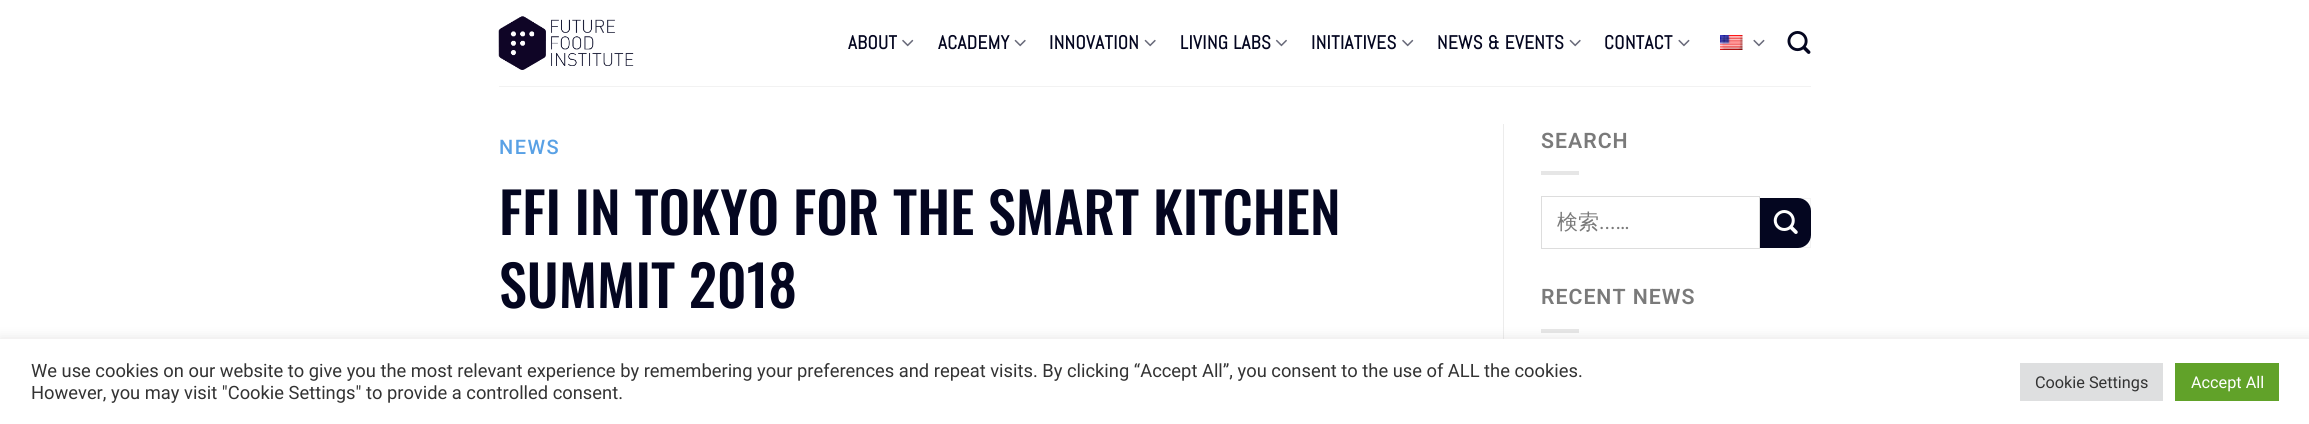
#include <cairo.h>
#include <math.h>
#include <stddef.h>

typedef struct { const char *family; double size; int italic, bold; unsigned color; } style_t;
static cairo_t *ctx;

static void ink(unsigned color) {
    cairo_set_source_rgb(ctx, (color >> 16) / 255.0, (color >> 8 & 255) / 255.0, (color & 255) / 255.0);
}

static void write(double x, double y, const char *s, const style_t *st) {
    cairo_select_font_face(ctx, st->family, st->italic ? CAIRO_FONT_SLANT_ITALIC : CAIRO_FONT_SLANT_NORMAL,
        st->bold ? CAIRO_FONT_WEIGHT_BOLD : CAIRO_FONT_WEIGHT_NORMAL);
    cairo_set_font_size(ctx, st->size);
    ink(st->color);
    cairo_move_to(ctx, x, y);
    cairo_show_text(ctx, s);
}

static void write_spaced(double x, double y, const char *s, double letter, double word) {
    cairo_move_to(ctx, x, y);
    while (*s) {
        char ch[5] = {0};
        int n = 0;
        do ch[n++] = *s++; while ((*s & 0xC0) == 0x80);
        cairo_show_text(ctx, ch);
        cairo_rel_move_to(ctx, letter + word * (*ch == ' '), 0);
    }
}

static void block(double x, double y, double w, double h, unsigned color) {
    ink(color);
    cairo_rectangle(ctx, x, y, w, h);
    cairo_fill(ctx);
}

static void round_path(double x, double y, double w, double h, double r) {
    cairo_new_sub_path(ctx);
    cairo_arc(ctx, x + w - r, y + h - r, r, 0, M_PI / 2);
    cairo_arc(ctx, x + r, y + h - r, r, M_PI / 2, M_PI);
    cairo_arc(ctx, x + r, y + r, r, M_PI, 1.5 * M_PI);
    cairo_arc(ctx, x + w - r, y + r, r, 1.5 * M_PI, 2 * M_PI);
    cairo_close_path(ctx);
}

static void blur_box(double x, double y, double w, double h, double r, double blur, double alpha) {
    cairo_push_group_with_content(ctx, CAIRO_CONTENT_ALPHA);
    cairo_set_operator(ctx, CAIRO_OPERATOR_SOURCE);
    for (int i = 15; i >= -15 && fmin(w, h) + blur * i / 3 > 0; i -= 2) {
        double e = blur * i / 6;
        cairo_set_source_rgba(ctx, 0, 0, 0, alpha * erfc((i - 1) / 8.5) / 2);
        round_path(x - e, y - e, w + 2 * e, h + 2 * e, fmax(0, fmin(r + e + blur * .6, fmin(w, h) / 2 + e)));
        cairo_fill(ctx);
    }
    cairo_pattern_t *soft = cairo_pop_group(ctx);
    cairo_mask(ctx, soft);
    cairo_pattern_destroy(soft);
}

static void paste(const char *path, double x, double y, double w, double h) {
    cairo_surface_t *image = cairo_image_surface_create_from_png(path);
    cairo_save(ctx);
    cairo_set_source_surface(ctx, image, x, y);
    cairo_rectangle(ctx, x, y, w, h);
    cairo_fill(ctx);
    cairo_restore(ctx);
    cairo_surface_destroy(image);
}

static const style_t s1 = {"Oswald Medium", 56.25, 0, 0, 0x040620};
static const style_t s2 = {"WenQuanYi Zen Hei Medium", 21, 0, 0, 0x7a7a7a};
static const style_t s3 = {"Roboto", 21, 0, 0, 0x7a7a7a};
static const style_t s4 = {"Roboto", 18.33, 0, 0, 0x333333};
static const style_t s5 = {"Roboto", 16.25, 0, 0, 0x333333};
static const style_t s6 = {"Roboto", 16.25, 0, 0, 0xffffff};

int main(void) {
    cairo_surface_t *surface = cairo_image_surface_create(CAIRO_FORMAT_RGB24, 2309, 424);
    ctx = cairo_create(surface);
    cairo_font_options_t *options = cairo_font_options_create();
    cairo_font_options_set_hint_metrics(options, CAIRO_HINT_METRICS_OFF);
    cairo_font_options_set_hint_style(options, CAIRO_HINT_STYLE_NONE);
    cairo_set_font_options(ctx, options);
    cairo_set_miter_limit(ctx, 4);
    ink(0xffffff);
    cairo_paint(ctx);
    paste("pic1.png", 498, 16, 136, 54);
    cairo_select_font_face(ctx, "Abel", CAIRO_FONT_SLANT_NORMAL, CAIRO_FONT_WEIGHT_BOLD);
    cairo_set_font_size(ctx, 19);
    ink(0x040620);
    write_spaced(848, 49, "ABOUT", 0.4, 0);
    paste("pic2.png", 902, 39, 12, 8);
    write_spaced(938, 49, "ACADEMY", 0.4, 0);
    paste("pic3.png", 1014, 39, 12, 8);
    write_spaced(1049, 49, "INNOVATION", 0.4, 0);
    paste("pic3.png", 1144, 39, 12, 8);
    write_spaced(1180, 49, "LIVING LABS", 0.4, 0);
    paste("pic4.png", 1275, 39, 12, 8);
    write_spaced(1311, 49, "INITIATIVES", 0.4, 0);
    paste("pic2.png", 1402, 39, 12, 8);
    write_spaced(1437, 49, "NEWS & EVENTS", 0.4, 0);
    paste("pic3.png", 1569, 39, 12, 8);
    write_spaced(1604, 49, "CONTACT", 0.4, 0);
    paste("pic5.png", 1678, 39, 12, 8);
    paste("pic6.png", 1720, 35, 23, 15);
    paste("pic5.png", 1753, 39, 12, 8);
    paste("pic7.png", 1787, 31, 24, 23);
    block(499, 86, 1312, 1, 0xf2f2f2);
    cairo_select_font_face(ctx, "Roboto Medium", CAIRO_FONT_SLANT_NORMAL, CAIRO_FONT_WEIGHT_NORMAL);
    cairo_set_font_size(ctx, 20);
    ink(0x59a1e5);
    write_spaced(499, 154, "NEWS", 1.5, 0);
    write(499, 235, "FFI IN TOKYO FOR THE SMART KITCHEN", &s1);
    write(499, 308, "SUMMIT 2018", &s1);
    block(1503, 124, 1, 215, 0xececec);
    cairo_select_font_face(ctx, "Roboto SemiBold", CAIRO_FONT_SLANT_NORMAL, CAIRO_FONT_WEIGHT_NORMAL);
    cairo_set_font_size(ctx, 21.25);
    ink(0x7a7a7a);
    write_spaced(1541, 148, "SEARCH", 1, 0);
    block(1541, 171, 38, 4, 0xe6e6e6);
    cairo_rectangle(ctx, 1541.5, 196.5, 218, 52);
    ink(0xdddddd);
    cairo_set_line_width(ctx, 1);
    cairo_stroke(ctx);
    write(1557, 229, "検索", &s2);
    write(1599, 229, "...…", &s3);
    ink(0x040620);
    cairo_new_path(ctx);
    cairo_move_to(ctx, 1760, 198);
    cairo_line_to(ctx, 1798, 198);
    cairo_curve_to(ctx, 1805, 198, 1811, 204, 1811, 211);
    cairo_line_to(ctx, 1811, 235);
    cairo_curve_to(ctx, 1811, 242, 1805, 248, 1798, 248);
    cairo_line_to(ctx, 1760, 248);
    cairo_close_path(ctx);
    cairo_fill(ctx);
    cairo_rectangle(ctx, 1760.5, 198.5, 50, 49);
    cairo_set_source_rgba(ctx, 0, 0, 0, 0.05);
    cairo_stroke(ctx);
    paste("pic8.png", 1773, 210, 25, 24);
    cairo_select_font_face(ctx, "Roboto SemiBold", CAIRO_FONT_SLANT_NORMAL, CAIRO_FONT_WEIGHT_NORMAL);
    cairo_set_font_size(ctx, 21.25);
    ink(0x7a7a7a);
    write_spaced(1541, 304, "RECENT NEWS", 1, 0);
    block(1541, 329, 38, 4, 0xe6e6e6);
    ink(0xacabab);
    blur_box(0, 338, 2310, 86, 0, 6, 0.3);
    block(0, 339, 2309, 85, 0xffffff);
    write(31, 377, "We use cookies on our website to give you the most relevant experience by remembering your preferences and repeat visits. By clicking “Accept All”, you consent to the use of ALL the cookies.", &s4);
    write(31, 399, "However, you may visit \"Cookie Settings\" to provide a controlled consent.", &s4);
    block(2020, 363, 143, 38, 0xdedfe0);
    write(2035, 388, "Cookie Settings", &s5);
    block(2175, 363, 104, 38, 0x61a229);
    write(2191, 388, "Accept All", &s6);
    cairo_surface_write_to_png(surface, "screenshot.png");
    cairo_font_options_destroy(options);
    cairo_destroy(ctx);
    cairo_surface_destroy(surface);
    return 0;
}
